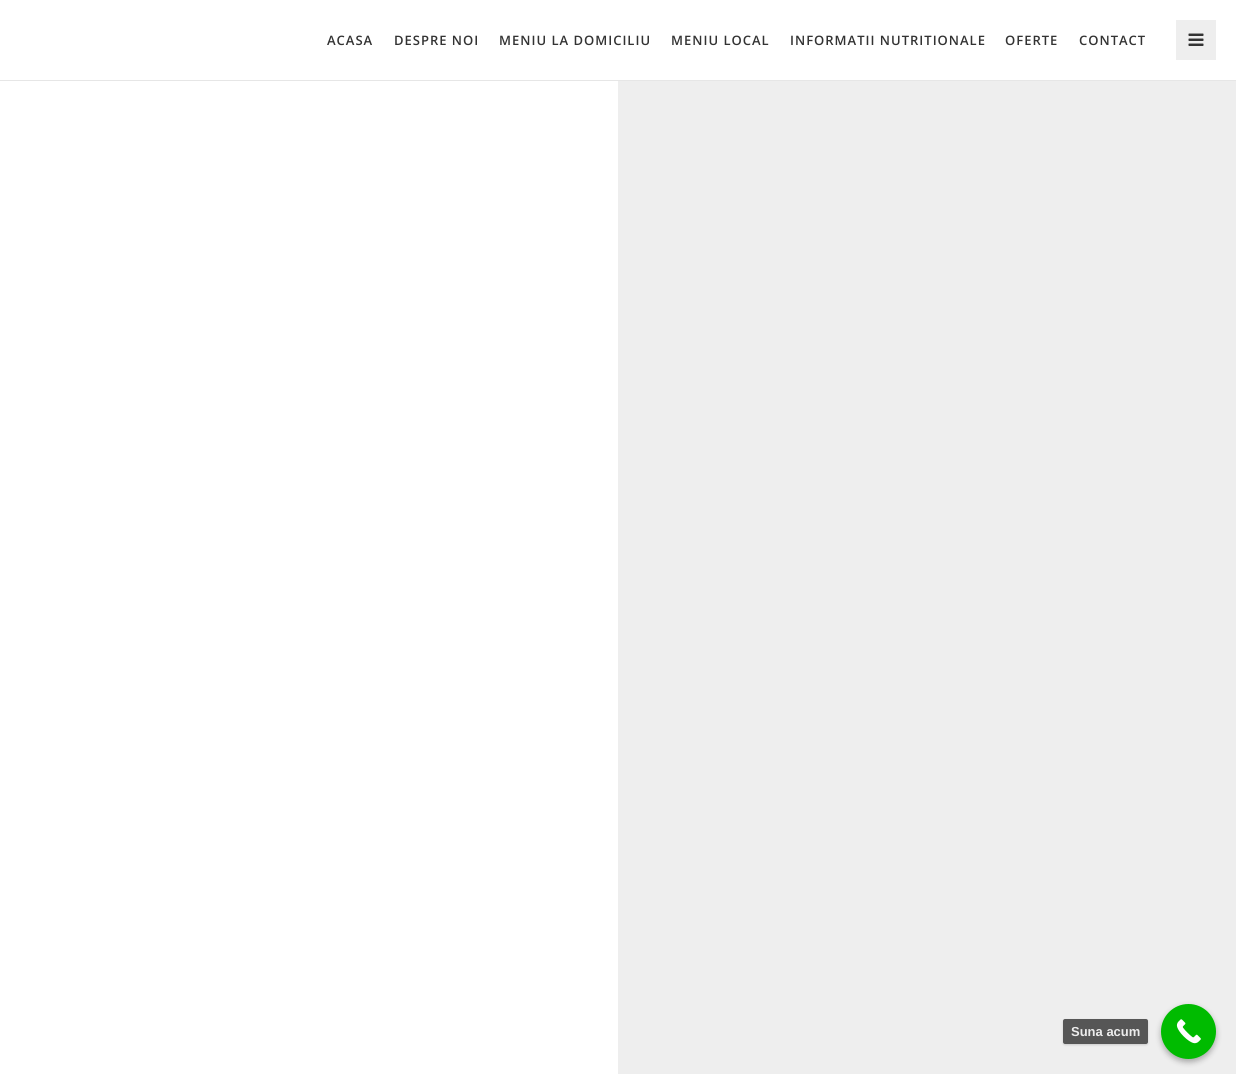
#include <cairo.h>
#include <math.h>
#include <stddef.h>

typedef struct { const char *family; double size; int italic, bold; unsigned color; } style_t;
static cairo_t *ctx;

static void ink(unsigned color) {
    cairo_set_source_rgb(ctx, (color >> 16) / 255.0, (color >> 8 & 255) / 255.0, (color & 255) / 255.0);
}

static void write(double x, double y, const char *s, const style_t *st) {
    cairo_select_font_face(ctx, st->family, st->italic ? CAIRO_FONT_SLANT_ITALIC : CAIRO_FONT_SLANT_NORMAL,
        st->bold ? CAIRO_FONT_WEIGHT_BOLD : CAIRO_FONT_WEIGHT_NORMAL);
    cairo_set_font_size(ctx, st->size);
    ink(st->color);
    cairo_move_to(ctx, x, y);
    cairo_show_text(ctx, s);
}

static void write_spaced(double x, double y, const char *s, double letter, double word) {
    cairo_move_to(ctx, x, y);
    while (*s) {
        char ch[5] = {0};
        int n = 0;
        do ch[n++] = *s++; while ((*s & 0xC0) == 0x80);
        cairo_show_text(ctx, ch);
        cairo_rel_move_to(ctx, letter + word * (*ch == ' '), 0);
    }
}

static void block(double x, double y, double w, double h, unsigned color) {
    ink(color);
    cairo_rectangle(ctx, x, y, w, h);
    cairo_fill(ctx);
}

static void round_path(double x, double y, double w, double h, double r) {
    cairo_new_sub_path(ctx);
    cairo_arc(ctx, x + w - r, y + h - r, r, 0, M_PI / 2);
    cairo_arc(ctx, x + r, y + h - r, r, M_PI / 2, M_PI);
    cairo_arc(ctx, x + r, y + r, r, M_PI, 1.5 * M_PI);
    cairo_arc(ctx, x + w - r, y + r, r, 1.5 * M_PI, 2 * M_PI);
    cairo_close_path(ctx);
}

static void blur_box(double x, double y, double w, double h, double r, double blur, double alpha) {
    cairo_push_group_with_content(ctx, CAIRO_CONTENT_ALPHA);
    cairo_set_operator(ctx, CAIRO_OPERATOR_SOURCE);
    for (int i = 15; i >= -15 && fmin(w, h) + blur * i / 3 > 0; i -= 2) {
        double e = blur * i / 6;
        cairo_set_source_rgba(ctx, 0, 0, 0, alpha * erfc((i - 1) / 8.5) / 2);
        round_path(x - e, y - e, w + 2 * e, h + 2 * e, fmax(0, fmin(r + e + blur * .6, fmin(w, h) / 2 + e)));
        cairo_fill(ctx);
    }
    cairo_pattern_t *soft = cairo_pop_group(ctx);
    cairo_mask(ctx, soft);
    cairo_pattern_destroy(soft);
}

static void paste(const char *path, double x, double y, double w, double h) {
    cairo_surface_t *image = cairo_image_surface_create_from_png(path);
    cairo_save(ctx);
    cairo_set_source_surface(ctx, image, x, y);
    cairo_rectangle(ctx, x, y, w, h);
    cairo_fill(ctx);
    cairo_restore(ctx);
    cairo_surface_destroy(image);
}

static const style_t s1 = {"Liberation Sans", 13, 0, 1, 0xececec};

int main(void) {
    cairo_surface_t *surface = cairo_image_surface_create(CAIRO_FORMAT_RGB24, 1236, 1074);
    ctx = cairo_create(surface);
    cairo_font_options_t *options = cairo_font_options_create();
    cairo_font_options_set_hint_metrics(options, CAIRO_HINT_METRICS_OFF);
    cairo_font_options_set_hint_style(options, CAIRO_HINT_STYLE_NONE);
    cairo_set_font_options(ctx, options);
    cairo_set_miter_limit(ctx, 4);
    ink(0xffffff);
    cairo_paint(ctx);
    block(0, 80, 1236, 1, 0xe6e6e6);
    cairo_select_font_face(ctx, "Open Sans SemiBold", CAIRO_FONT_SLANT_NORMAL, CAIRO_FONT_WEIGHT_NORMAL);
    cairo_set_font_size(ctx, 13);
    ink(0x333333);
    write_spaced(327, 45, "ACASA", 1, 0);
    write_spaced(394, 45, "DESPRE NOI", 1, 0);
    write_spaced(499, 45, "MENIU LA DOMICILIU", 1, 0);
    write_spaced(671, 45, "MENIU LOCAL", 1, 0);
    write_spaced(790, 45, "INFORMATII NUTRITIONALE", 1, 0);
    write_spaced(1005, 45, "OFERTE", 1, 0);
    write_spaced(1079, 45, "CONTACT", 1, 0);
    block(1176, 20, 40, 40, 0xeeeeee);
    paste("pic1.png", 1188, 33, 16, 13);
    block(618, 81, 618, 993, 0xeeeeee);
    ink(0x000000);
    blur_box(1161, 1007, 55, 55, 27.5, 3, 0.3);
    ink(0x00bb00);
    cairo_arc(ctx, 1188.5, 1031.5, 27.5, 0, 2 * M_PI);
    cairo_fill(ctx);
    paste("pic2.png", 1176, 1019, 25, 25);
    cairo_save(ctx);
    cairo_set_fill_rule(ctx, CAIRO_FILL_RULE_EVEN_ODD);
    cairo_new_path(ctx);
    cairo_move_to(ctx, 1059, 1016);
    cairo_line_to(ctx, 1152, 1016);
    cairo_line_to(ctx, 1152, 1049);
    cairo_line_to(ctx, 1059, 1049);
    cairo_close_path(ctx);
    cairo_move_to(ctx, 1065, 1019);
    cairo_line_to(ctx, 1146, 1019);
    cairo_curve_to(ctx, 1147, 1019, 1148, 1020, 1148, 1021);
    cairo_line_to(ctx, 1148, 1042);
    cairo_curve_to(ctx, 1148, 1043, 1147, 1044, 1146, 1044);
    cairo_line_to(ctx, 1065, 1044);
    cairo_curve_to(ctx, 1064, 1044, 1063, 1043, 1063, 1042);
    cairo_line_to(ctx, 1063, 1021);
    cairo_curve_to(ctx, 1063, 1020, 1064, 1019, 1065, 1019);
    cairo_close_path(ctx);
    cairo_clip(ctx);
    ink(0x000000);
    blur_box(1063, 1020, 85, 25, 2, 1, 0.15);
    cairo_restore(ctx);
    cairo_set_source_rgba(ctx, 0.275, 0.275, 0.275, 0.9);
    round_path(1063, 1019, 85, 25, 2);
    cairo_fill(ctx);
    write(1071, 1036, "Suna acum", &s1);
    cairo_surface_write_to_png(surface, "screenshot.png");
    cairo_font_options_destroy(options);
    cairo_destroy(ctx);
    cairo_surface_destroy(surface);
    return 0;
}
